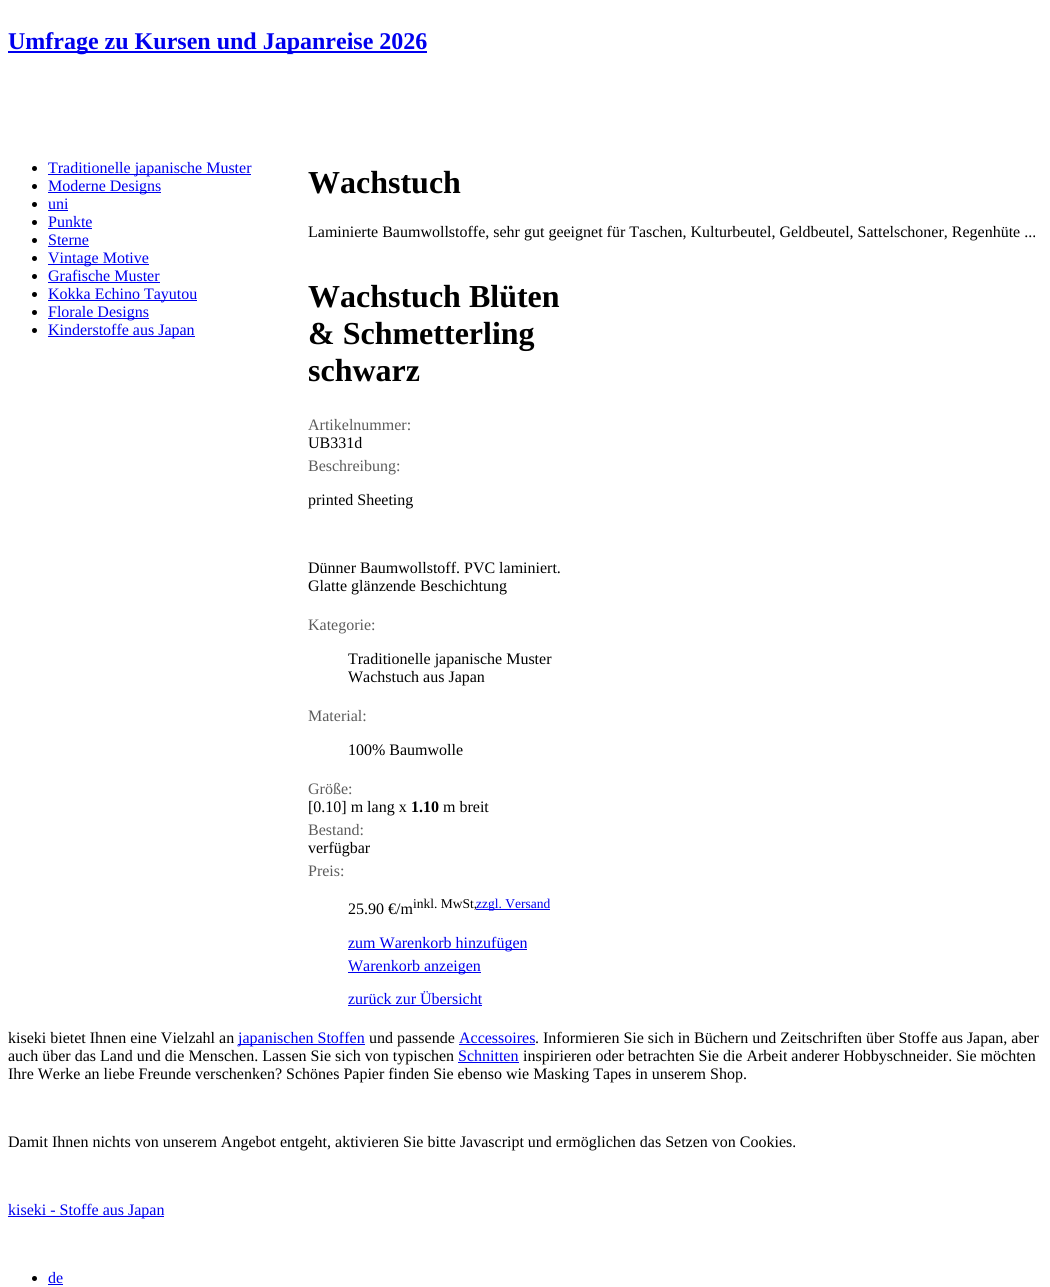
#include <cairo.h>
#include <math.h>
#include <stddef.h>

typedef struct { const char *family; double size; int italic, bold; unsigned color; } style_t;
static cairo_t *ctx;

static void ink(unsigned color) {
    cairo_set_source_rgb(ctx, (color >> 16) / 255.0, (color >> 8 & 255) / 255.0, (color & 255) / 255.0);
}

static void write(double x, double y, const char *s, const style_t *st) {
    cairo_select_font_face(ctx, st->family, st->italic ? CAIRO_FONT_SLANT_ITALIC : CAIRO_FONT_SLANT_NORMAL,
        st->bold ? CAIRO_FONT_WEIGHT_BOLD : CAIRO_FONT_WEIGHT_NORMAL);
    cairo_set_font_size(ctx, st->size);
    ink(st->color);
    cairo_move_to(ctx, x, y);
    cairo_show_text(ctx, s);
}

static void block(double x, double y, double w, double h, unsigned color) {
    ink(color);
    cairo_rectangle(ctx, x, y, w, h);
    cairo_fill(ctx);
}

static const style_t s1 = {"Liberation Serif", 24, 0, 1, 0x0000ee};
static const style_t s2 = {"Liberation Serif", 16, 0, 0, 0x0000ee};
static const style_t s3 = {"Liberation Serif", 32, 0, 1, 0x000000};
static const style_t s4 = {"Liberation Serif", 16, 0, 0, 0x000000};
static const style_t s5 = {"Liberation Serif", 16, 0, 0, 0x5c5c5c};
static const style_t s6 = {"Liberation Serif", 16, 0, 1, 0x000000};
static const style_t s7 = {"Liberation Serif", 13.5, 0, 0, 0x000000};
static const style_t s8 = {"Liberation Serif", 13.5, 0, 0, 0x0000ee};

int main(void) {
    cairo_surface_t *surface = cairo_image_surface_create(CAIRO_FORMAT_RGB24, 1050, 1287);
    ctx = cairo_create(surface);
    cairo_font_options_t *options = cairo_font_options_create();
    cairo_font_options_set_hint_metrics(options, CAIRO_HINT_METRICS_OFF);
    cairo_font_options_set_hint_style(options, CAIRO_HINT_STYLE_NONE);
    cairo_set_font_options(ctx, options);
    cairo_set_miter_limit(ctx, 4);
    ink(0xffffff);
    cairo_paint(ctx);
    block(8, 51, 419, 2, 0x0000ee);
    write(8, 49, "Umfrage zu Kursen und Japanreise 2026", &s1);
    ink(0x000000);
    cairo_new_path(ctx);
    cairo_arc(ctx, 34.5, 168.5, 2.5, 0, 2 * M_PI);
    cairo_fill(ctx);
    block(48, 174, 203, 1, 0x0000ee);
    write(48, 173, "Traditionelle japanische Muster", &s2);
    ink(0x000000);
    cairo_new_path(ctx);
    cairo_arc(ctx, 34.5, 186.5, 2.5, 0, 2 * M_PI);
    cairo_fill(ctx);
    block(48, 192, 113, 1, 0x0000ee);
    write(48, 191, "Moderne Designs", &s2);
    ink(0x000000);
    cairo_new_path(ctx);
    cairo_arc(ctx, 34.5, 204.5, 2.5, 0, 2 * M_PI);
    cairo_fill(ctx);
    write(48, 209, "uni", &s2);
    block(48, 210, 20, 1, 0x0000ee);
    ink(0x000000);
    cairo_new_path(ctx);
    cairo_arc(ctx, 34.5, 222.5, 2.5, 0, 2 * M_PI);
    cairo_fill(ctx);
    write(48, 227, "Punkte", &s2);
    block(48, 228, 44, 1, 0x0000ee);
    ink(0x000000);
    cairo_new_path(ctx);
    cairo_arc(ctx, 34.5, 240.5, 2.5, 0, 2 * M_PI);
    cairo_fill(ctx);
    write(48, 245, "Sterne", &s2);
    block(48, 246, 41, 1, 0x0000ee);
    ink(0x000000);
    cairo_new_path(ctx);
    cairo_arc(ctx, 34.5, 258.5, 2.5, 0, 2 * M_PI);
    cairo_fill(ctx);
    block(48, 264, 101, 1, 0x0000ee);
    write(48, 263, "Vintage Motive", &s2);
    ink(0x000000);
    cairo_new_path(ctx);
    cairo_arc(ctx, 34.5, 276.5, 2.5, 0, 2 * M_PI);
    cairo_fill(ctx);
    write(48, 281, "Grafische Muster", &s2);
    block(48, 282, 112, 1, 0x0000ee);
    ink(0x000000);
    cairo_new_path(ctx);
    cairo_arc(ctx, 34.5, 294.5, 2.5, 0, 2 * M_PI);
    cairo_fill(ctx);
    block(48, 300, 149, 1, 0x0000ee);
    write(48, 299, "Kokka Echino Tayutou", &s2);
    ink(0x000000);
    cairo_new_path(ctx);
    cairo_arc(ctx, 34.5, 312.5, 2.5, 0, 2 * M_PI);
    cairo_fill(ctx);
    block(48, 318, 101, 1, 0x0000ee);
    write(48, 317, "Florale Designs", &s2);
    ink(0x000000);
    cairo_new_path(ctx);
    cairo_arc(ctx, 34.5, 330.5, 2.5, 0, 2 * M_PI);
    cairo_fill(ctx);
    block(48, 336, 147, 1, 0x0000ee);
    write(48, 335, "Kinderstoffe aus Japan", &s2);
    write(308, 193, "Wachstuch", &s3);
    write(308, 237, "Laminierte Baumwollstoffe, sehr gut geeignet für Taschen, Kulturbeutel, Geldbeutel, Sattelschoner, Regenhüte ...", &s4);
    write(308, 307, "Wachstuch Blüten", &s3);
    write(308, 344, "& Schmetterling", &s3);
    write(308, 381, "schwarz", &s3);
    write(308, 430, "Artikelnummer:", &s5);
    write(308, 448, "UB331d", &s4);
    write(308, 471, "Beschreibung:", &s5);
    write(308, 505, "printed Sheeting", &s4);
    write(308, 573, "Dünner Baumwollstoff. PVC laminiert.", &s4);
    write(308, 591, "Glatte glänzende Beschichtung", &s4);
    write(308, 630, "Kategorie:", &s5);
    write(348, 664, "Traditionelle japanische Muster", &s4);
    write(348, 682, "Wachstuch aus Japan", &s4);
    write(308, 721, "Material:", &s5);
    write(348, 755, "100% Baumwolle", &s4);
    write(308, 794, "Größe:", &s5);
    write(308, 812, "[0.10] m lang x", &s4);
    write(411, 812, "1.10", &s6);
    write(443, 812, "m breit", &s4);
    write(308, 835, "Bestand:", &s5);
    write(308, 853, "verfügbar", &s4);
    write(308, 876, "Preis:", &s5);
    write(348, 914, "25.90 €/m", &s4);
    write(413, 908, "inkl. MwSt,", &s7);
    block(476, 909, 74, 1, 0x0000ee);
    write(476, 908, "zzgl. Versand", &s8);
    block(348, 949, 179, 1, 0x0000ee);
    write(348, 948, "zum Warenkorb hinzufügen", &s2);
    block(348, 972, 133, 1, 0x0000ee);
    write(348, 971, "Warenkorb anzeigen", &s2);
    write(348, 1004, "zurück zur Übersicht", &s2);
    block(348, 1005, 134, 1, 0x0000ee);
    write(8, 1043, "kiseki bietet Ihnen eine Vielzahl an", &s4);
    block(238, 1044, 127, 1, 0x0000ee);
    write(238, 1043, "japanischen Stoffen", &s2);
    write(369, 1043, "und passende", &s4);
    write(459, 1043, "Accessoires", &s2);
    block(459, 1044, 76, 1, 0x0000ee);
    write(535, 1043, ". Informieren Sie sich in Büchern und Zeitschriften über Stoffe aus Japan, aber", &s4);
    write(8, 1061, "auch über das Land und die Menschen. Lassen Sie sich von typischen", &s4);
    write(458, 1061, "Schnitten", &s2);
    block(458, 1062, 61, 1, 0x0000ee);
    write(523, 1061, "inspirieren oder betrachten Sie die Arbeit anderer Hobbyschneider. Sie möchten", &s4);
    write(8, 1079, "Ihre Werke an liebe Freunde verschenken? Schönes Papier finden Sie ebenso wie Masking Tapes in unserem Shop.", &s4);
    write(8, 1147, "Damit Ihnen nichts von unserem Angebot entgeht, aktivieren Sie bitte Javascript und ermöglichen das Setzen von Cookies.", &s4);
    block(8, 1216, 156, 1, 0x0000ee);
    write(8, 1215, "kiseki - Stoffe aus Japan", &s2);
    ink(0x000000);
    cairo_new_path(ctx);
    cairo_arc(ctx, 34.5, 1278.5, 2.5, 0, 2 * M_PI);
    cairo_fill(ctx);
    write(48, 1283, "de", &s2);
    block(48, 1284, 15, 1, 0x0000ee);
    cairo_surface_write_to_png(surface, "screenshot.png");
    cairo_font_options_destroy(options);
    cairo_destroy(ctx);
    cairo_surface_destroy(surface);
    return 0;
}
